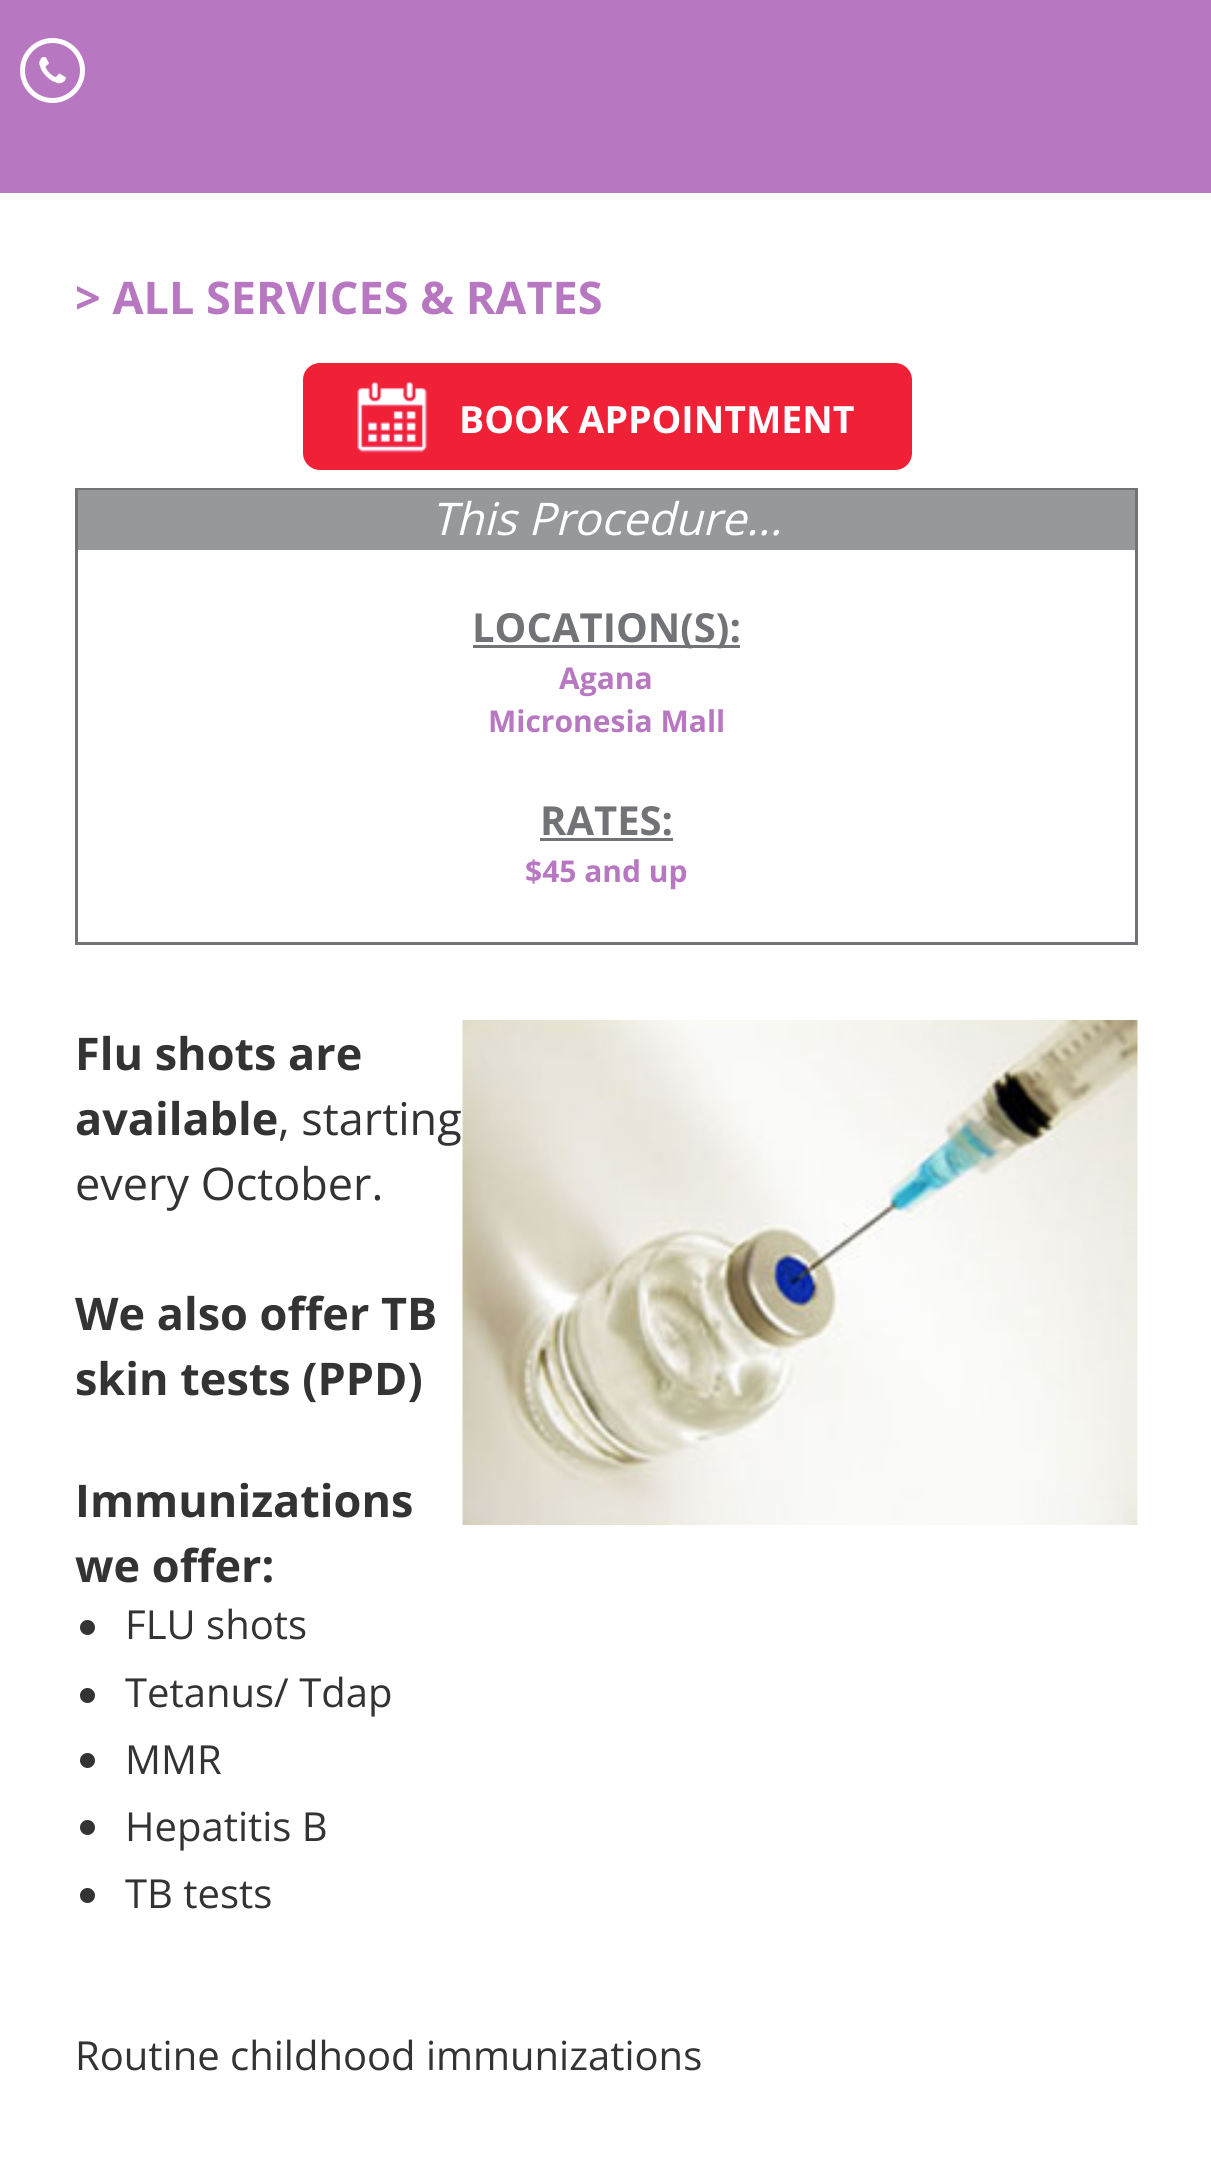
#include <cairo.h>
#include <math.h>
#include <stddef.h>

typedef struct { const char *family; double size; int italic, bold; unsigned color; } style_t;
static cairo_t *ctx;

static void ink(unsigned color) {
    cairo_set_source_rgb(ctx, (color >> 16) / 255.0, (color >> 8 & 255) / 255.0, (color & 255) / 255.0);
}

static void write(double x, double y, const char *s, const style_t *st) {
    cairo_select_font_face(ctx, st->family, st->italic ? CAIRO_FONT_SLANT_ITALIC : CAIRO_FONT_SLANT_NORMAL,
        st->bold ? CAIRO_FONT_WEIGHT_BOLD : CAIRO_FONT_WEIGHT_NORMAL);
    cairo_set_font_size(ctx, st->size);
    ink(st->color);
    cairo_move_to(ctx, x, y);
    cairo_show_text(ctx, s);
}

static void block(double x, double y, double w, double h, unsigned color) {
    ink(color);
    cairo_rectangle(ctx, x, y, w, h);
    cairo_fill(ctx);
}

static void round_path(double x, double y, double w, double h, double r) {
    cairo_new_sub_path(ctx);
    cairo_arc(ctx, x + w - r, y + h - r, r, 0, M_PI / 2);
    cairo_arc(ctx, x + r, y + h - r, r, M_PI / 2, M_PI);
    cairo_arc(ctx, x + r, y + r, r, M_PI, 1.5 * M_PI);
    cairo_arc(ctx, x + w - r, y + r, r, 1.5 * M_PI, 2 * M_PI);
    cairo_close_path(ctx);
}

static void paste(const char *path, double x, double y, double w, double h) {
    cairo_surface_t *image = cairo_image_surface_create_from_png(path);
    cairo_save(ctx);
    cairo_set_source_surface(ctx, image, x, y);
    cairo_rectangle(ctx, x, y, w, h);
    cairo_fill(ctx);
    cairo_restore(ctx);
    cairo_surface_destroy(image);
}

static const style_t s1 = {"Open Sans", 45, 0, 1, 0xb877c1};
static const style_t s2 = {"Open Sans", 37.5, 0, 1, 0xffffff};
static const style_t s3 = {"Open Sans", 45, 1, 0, 0xffffff};
static const style_t s4 = {"Open Sans", 40, 0, 1, 0x727376};
static const style_t s5 = {"Open Sans", 30, 0, 1, 0xb877c1};
static const style_t s6 = {"Open Sans", 45, 0, 1, 0x333333};
static const style_t s7 = {"Open Sans", 45, 0, 0, 0x333333};
static const style_t s8 = {"Open Sans", 40, 0, 0, 0x333333};

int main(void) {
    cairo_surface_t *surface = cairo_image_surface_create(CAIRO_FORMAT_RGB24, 1211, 2160);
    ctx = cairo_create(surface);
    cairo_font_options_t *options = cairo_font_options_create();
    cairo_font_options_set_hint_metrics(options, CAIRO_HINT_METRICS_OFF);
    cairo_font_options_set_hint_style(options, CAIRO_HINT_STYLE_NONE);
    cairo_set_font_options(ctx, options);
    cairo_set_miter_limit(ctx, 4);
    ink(0xffffff);
    cairo_paint(ctx);
    block(0, 0, 1211, 193, 0xb877c1);
    cairo_arc(ctx, 52.5, 70.5, 30, 0, 2 * M_PI);
    ink(0xffffff);
    cairo_set_line_width(ctx, 5);
    cairo_stroke(ctx);
    paste("pic1.png", 39, 57, 28, 27);
    write(75, 314, "> ALL SERVICES & RATES", &s1);
    ink(0xf02137);
    round_path(299, 359, 617, 115, 21);
    cairo_fill_preserve(ctx);
    ink(0xffffff);
    cairo_set_line_width(ctx, 8);
    cairo_stroke(ctx);
    paste("pic2.png", 357, 381, 71, 72);
    write(459, 433, "BOOK APPOINTMENT", &s2);
    cairo_rectangle(ctx, 76.5, 489.5, 1060, 454);
    ink(0x727376);
    cairo_set_line_width(ctx, 3);
    cairo_stroke(ctx);
    block(78, 490, 1057, 60, 0x96989a);
    write(431, 535, "This Procedure...", &s3);
    block(473, 645, 267, 3, 0x727376);
    write(472, 642, "LOCATION(S):", &s4);
    write(559, 689, "Agana", &s5);
    write(488, 732, "Micronesia Mall", &s5);
    write(540, 835, "RATES:", &s4);
    block(540, 838, 133, 3, 0x727376);
    write(525, 882, "$45 and up", &s5);
    write(75, 1070, "Flu shots are", &s6);
    paste("pic3.png", 462, 1020, 676, 505);
    write(75, 1135, "available", &s6);
    write(278, 1135, ", starting", &s7);
    write(75, 1200, "every October.", &s7);
    write(75, 1330, "We also offer TB", &s6);
    write(75, 1395, "skin tests (PPD)", &s6);
    write(75, 1517, "Immunizations", &s6);
    write(75, 1582, "we offer:", &s6);
    cairo_new_path(ctx);
    cairo_arc(ctx, 87.5, 1627.5, 7.5, 0, 2 * M_PI);
    cairo_fill(ctx);
    write(125, 1639, "FLU shots", &s8);
    cairo_new_path(ctx);
    cairo_arc(ctx, 87.5, 1695.5, 7.5, 0, 2 * M_PI);
    cairo_fill(ctx);
    write(125, 1707, "Tetanus/ Tdap", &s8);
    cairo_new_path(ctx);
    cairo_arc(ctx, 87.5, 1760.5, 7.5, 0, 2 * M_PI);
    cairo_fill(ctx);
    write(125, 1774, "MMR", &s8);
    cairo_new_path(ctx);
    cairo_arc(ctx, 87.5, 1827.5, 7.5, 0, 2 * M_PI);
    cairo_fill(ctx);
    write(125, 1841, "Hepatitis B", &s8);
    cairo_new_path(ctx);
    cairo_arc(ctx, 87.5, 1895.5, 7.5, 0, 2 * M_PI);
    cairo_fill(ctx);
    write(125, 1908, "TB tests", &s8);
    write(75, 2070, "Routine childhood immunizations", &s8);
    cairo_surface_write_to_png(surface, "screenshot.png");
    cairo_font_options_destroy(options);
    cairo_destroy(ctx);
    cairo_surface_destroy(surface);
    return 0;
}
